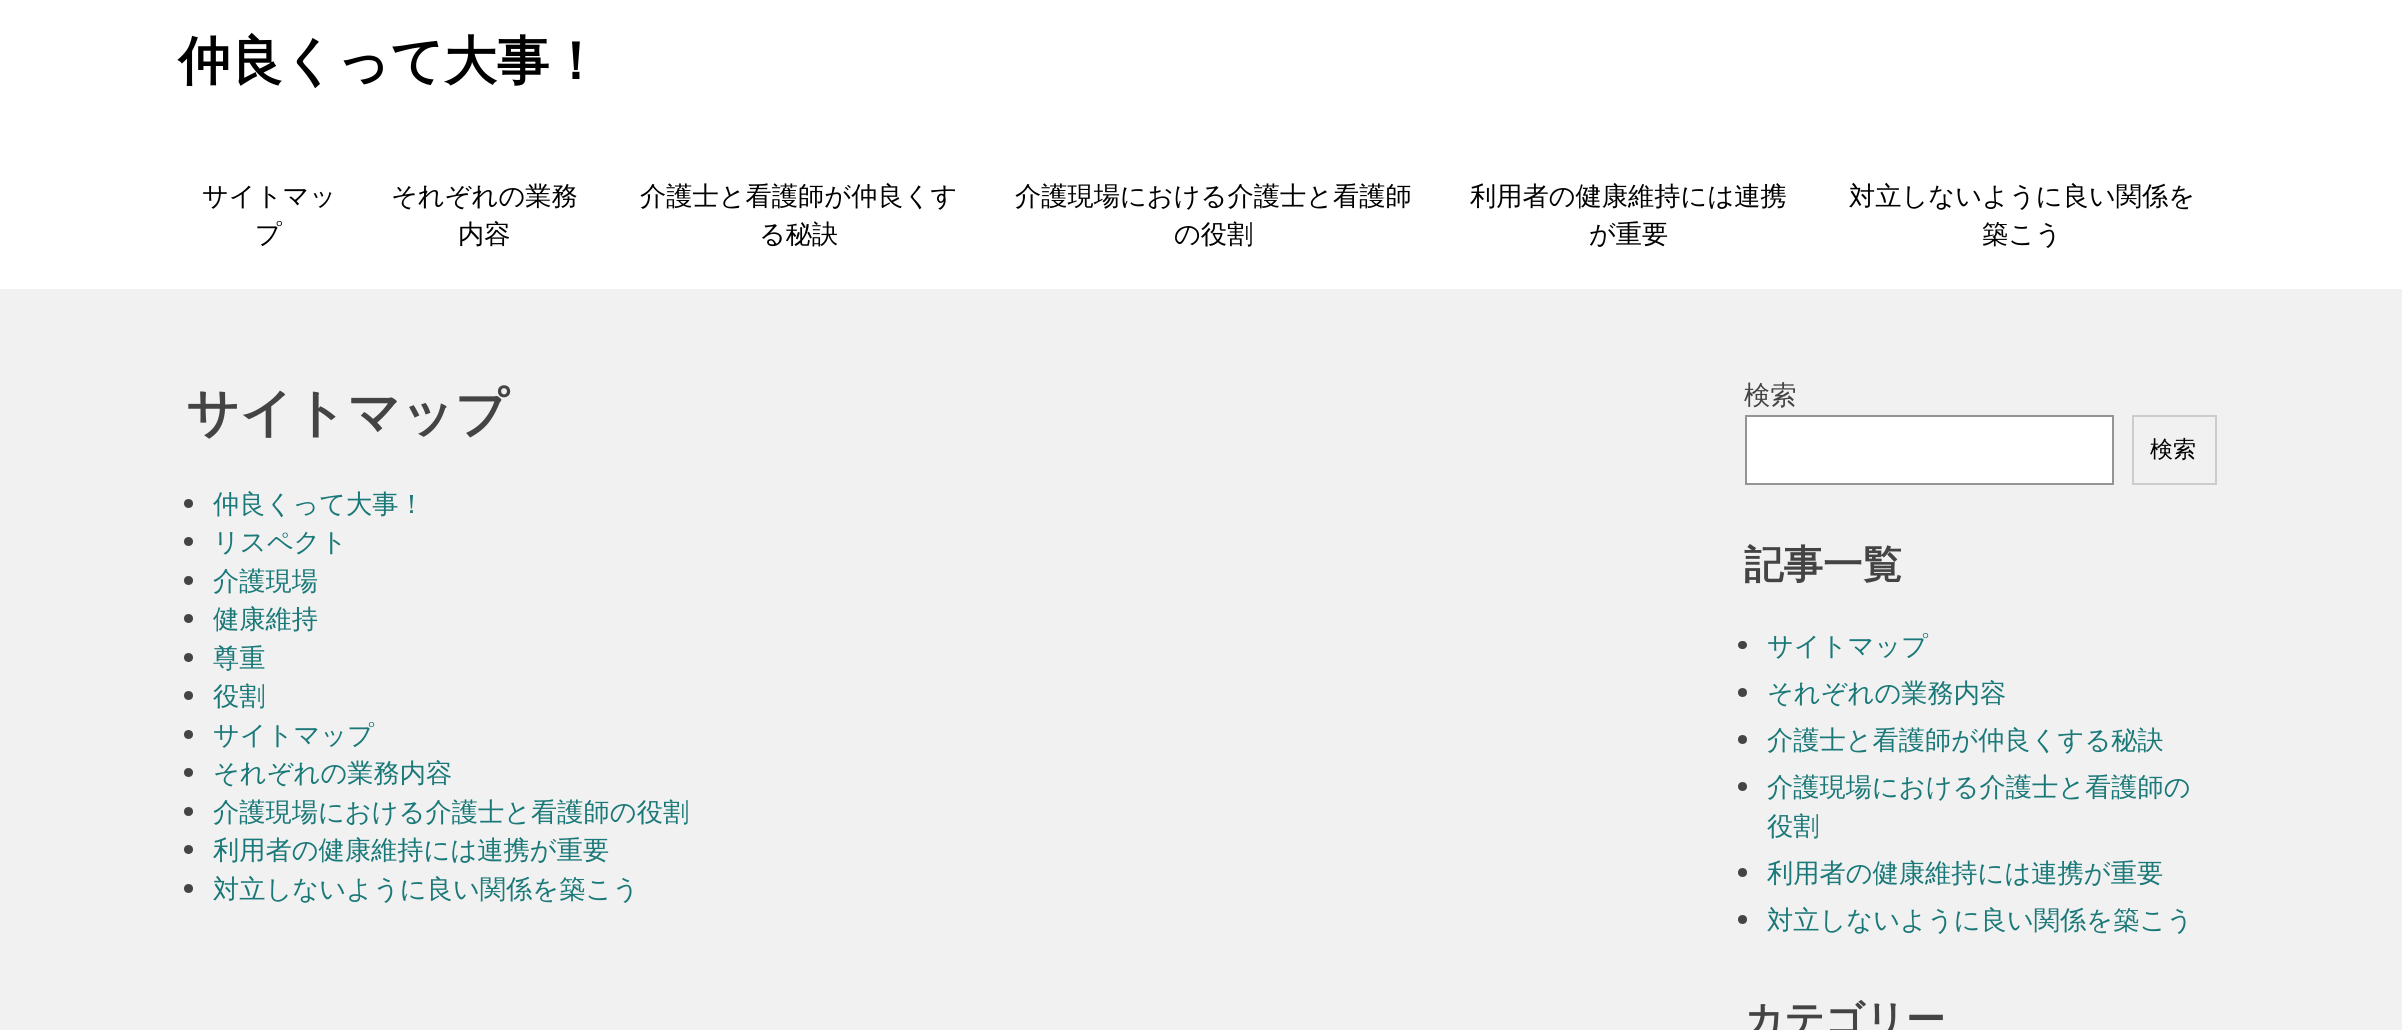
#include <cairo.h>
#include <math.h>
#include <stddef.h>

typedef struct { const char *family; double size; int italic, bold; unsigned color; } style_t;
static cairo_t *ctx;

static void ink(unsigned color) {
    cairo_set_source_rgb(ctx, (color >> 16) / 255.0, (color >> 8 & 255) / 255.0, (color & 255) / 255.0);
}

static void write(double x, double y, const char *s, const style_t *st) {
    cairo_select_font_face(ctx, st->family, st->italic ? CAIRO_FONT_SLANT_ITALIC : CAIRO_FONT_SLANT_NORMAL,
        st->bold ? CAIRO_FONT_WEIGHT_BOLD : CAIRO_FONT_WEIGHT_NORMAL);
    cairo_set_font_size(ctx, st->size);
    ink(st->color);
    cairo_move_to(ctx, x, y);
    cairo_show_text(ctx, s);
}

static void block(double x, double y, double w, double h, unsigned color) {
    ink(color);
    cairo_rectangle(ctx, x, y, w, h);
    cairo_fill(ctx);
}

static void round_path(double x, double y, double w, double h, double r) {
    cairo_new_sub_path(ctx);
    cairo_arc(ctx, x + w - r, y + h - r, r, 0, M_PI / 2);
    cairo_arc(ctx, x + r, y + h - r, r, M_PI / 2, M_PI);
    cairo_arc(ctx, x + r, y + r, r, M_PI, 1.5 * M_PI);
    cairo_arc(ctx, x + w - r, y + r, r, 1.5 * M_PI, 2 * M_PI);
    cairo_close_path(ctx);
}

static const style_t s1 = {"WenQuanYi Zen Hei", 52.5, 0, 1, 0x000000};
static const style_t s2 = {"WenQuanYi Zen Hei Medium", 26.25, 0, 0, 0x000000};
static const style_t s3 = {"WenQuanYi Zen Hei", 52.5, 0, 1, 0x444444};
static const style_t s4 = {"WenQuanYi Zen Hei Medium", 26.25, 0, 0, 0x1a7878};
static const style_t s5 = {"WenQuanYi Zen Hei Medium", 26.25, 0, 0, 0x444444};
static const style_t s6 = {"WenQuanYi Zen Hei Medium", 23, 0, 0, 0x000000};
static const style_t s7 = {"WenQuanYi Zen Hei", 39.5, 0, 1, 0x444444};

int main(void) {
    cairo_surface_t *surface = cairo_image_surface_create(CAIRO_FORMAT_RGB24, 2402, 1030);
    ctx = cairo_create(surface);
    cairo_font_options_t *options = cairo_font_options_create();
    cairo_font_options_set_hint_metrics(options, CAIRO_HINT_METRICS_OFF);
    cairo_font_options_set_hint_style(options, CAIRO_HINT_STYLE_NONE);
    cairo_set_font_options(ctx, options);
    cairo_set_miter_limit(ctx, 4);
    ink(0xf1f1f1);
    cairo_paint(ctx);
    block(0, 0, 2402, 289, 0xffffff);
    write(178, 79, "仲良くって大事！", &s1);
    write(202, 205, "サイトマッ", &s2);
    write(255, 243, "プ", &s2);
    write(391, 205, "それぞれの業務", &s2);
    write(458, 243, "内容", &s2);
    write(640, 205, "介護士と看護師が仲良くす", &s2);
    write(759, 243, "る秘訣", &s2);
    write(1015, 205, "介護現場における介護士と看護師", &s2);
    write(1174, 243, "の役割", &s2);
    write(1470, 205, "利用者の健康維持には連携", &s2);
    write(1589, 243, "が重要", &s2);
    write(1849, 205, "対立しないように良い関係を", &s2);
    write(1982, 243, "築こう", &s2);
    write(186, 431, "サイトマップ", &s3);
    cairo_new_path(ctx);
    cairo_arc(ctx, 188.5, 503.5, 4.5, 0, 2 * M_PI);
    cairo_fill(ctx);
    write(213, 513, "仲良くって大事！", &s4);
    ink(0x444444);
    cairo_new_path(ctx);
    cairo_arc(ctx, 188.5, 541.5, 4.5, 0, 2 * M_PI);
    cairo_fill(ctx);
    write(213, 551, "リスペクト", &s4);
    ink(0x444444);
    cairo_new_path(ctx);
    cairo_arc(ctx, 188.5, 580.5, 4.5, 0, 2 * M_PI);
    cairo_fill(ctx);
    write(213, 590, "介護現場", &s4);
    ink(0x444444);
    cairo_new_path(ctx);
    cairo_arc(ctx, 188.5, 618.5, 4.5, 0, 2 * M_PI);
    cairo_fill(ctx);
    write(213, 628, "健康維持", &s4);
    ink(0x444444);
    cairo_new_path(ctx);
    cairo_arc(ctx, 188.5, 657.5, 4.5, 0, 2 * M_PI);
    cairo_fill(ctx);
    write(213, 667, "尊重", &s4);
    ink(0x444444);
    cairo_new_path(ctx);
    cairo_arc(ctx, 188.5, 695.5, 4.5, 0, 2 * M_PI);
    cairo_fill(ctx);
    write(213, 705, "役割", &s4);
    ink(0x444444);
    cairo_new_path(ctx);
    cairo_arc(ctx, 188.5, 734.5, 4.5, 0, 2 * M_PI);
    cairo_fill(ctx);
    write(213, 744, "サイトマップ", &s4);
    ink(0x444444);
    cairo_new_path(ctx);
    cairo_arc(ctx, 188.5, 772.5, 4.5, 0, 2 * M_PI);
    cairo_fill(ctx);
    write(213, 782, "それぞれの業務内容", &s4);
    ink(0x444444);
    cairo_new_path(ctx);
    cairo_arc(ctx, 188.5, 811.5, 4.5, 0, 2 * M_PI);
    cairo_fill(ctx);
    write(213, 821, "介護現場における介護士と看護師の役割", &s4);
    ink(0x444444);
    cairo_new_path(ctx);
    cairo_arc(ctx, 188.5, 849.5, 4.5, 0, 2 * M_PI);
    cairo_fill(ctx);
    write(213, 859, "利用者の健康維持には連携が重要", &s4);
    ink(0x444444);
    cairo_new_path(ctx);
    cairo_arc(ctx, 188.5, 888.5, 4.5, 0, 2 * M_PI);
    cairo_fill(ctx);
    write(213, 898, "対立しないように良い関係を築こう", &s4);
    write(1744, 404, "検索", &s5);
    ink(0xffffff);
    cairo_rectangle(ctx, 1746, 416, 367, 68);
    cairo_fill_preserve(ctx);
    ink(0x949494);
    cairo_stroke(ctx);
    cairo_rectangle(ctx, 2133, 416, 83, 68);
    ink(0xcccccc);
    cairo_stroke(ctx);
    write(2150, 457, "検索", &s6);
    write(1744, 578, "記事一覧", &s7);
    round_path(1738, 641, 9, 8, 4);
    cairo_fill(ctx);
    write(1767, 655, "サイトマップ", &s4);
    ink(0x444444);
    cairo_new_path(ctx);
    cairo_arc(ctx, 1742.5, 692.5, 4.5, 0, 2 * M_PI);
    cairo_fill(ctx);
    write(1767, 702, "それぞれの業務内容", &s4);
    ink(0x444444);
    cairo_new_path(ctx);
    cairo_arc(ctx, 1742.5, 739.5, 4.5, 0, 2 * M_PI);
    cairo_fill(ctx);
    write(1767, 749, "介護士と看護師が仲良くする秘訣", &s4);
    ink(0x444444);
    cairo_new_path(ctx);
    cairo_arc(ctx, 1742.5, 786.5, 4.5, 0, 2 * M_PI);
    cairo_fill(ctx);
    write(1767, 796, "介護現場における介護士と看護師の", &s4);
    write(1767, 835, "役割", &s4);
    ink(0x444444);
    cairo_new_path(ctx);
    cairo_arc(ctx, 1742.5, 872.5, 4.5, 0, 2 * M_PI);
    cairo_fill(ctx);
    write(1767, 882, "利用者の健康維持には連携が重要", &s4);
    ink(0x444444);
    cairo_new_path(ctx);
    cairo_arc(ctx, 1742.5, 919.5, 4.5, 0, 2 * M_PI);
    cairo_fill(ctx);
    write(1767, 929, "対立しないように良い関係を築こう", &s4);
    write(1744, 1033, "カテゴリー", &s7);
    cairo_surface_write_to_png(surface, "screenshot.png");
    cairo_font_options_destroy(options);
    cairo_destroy(ctx);
    cairo_surface_destroy(surface);
    return 0;
}
